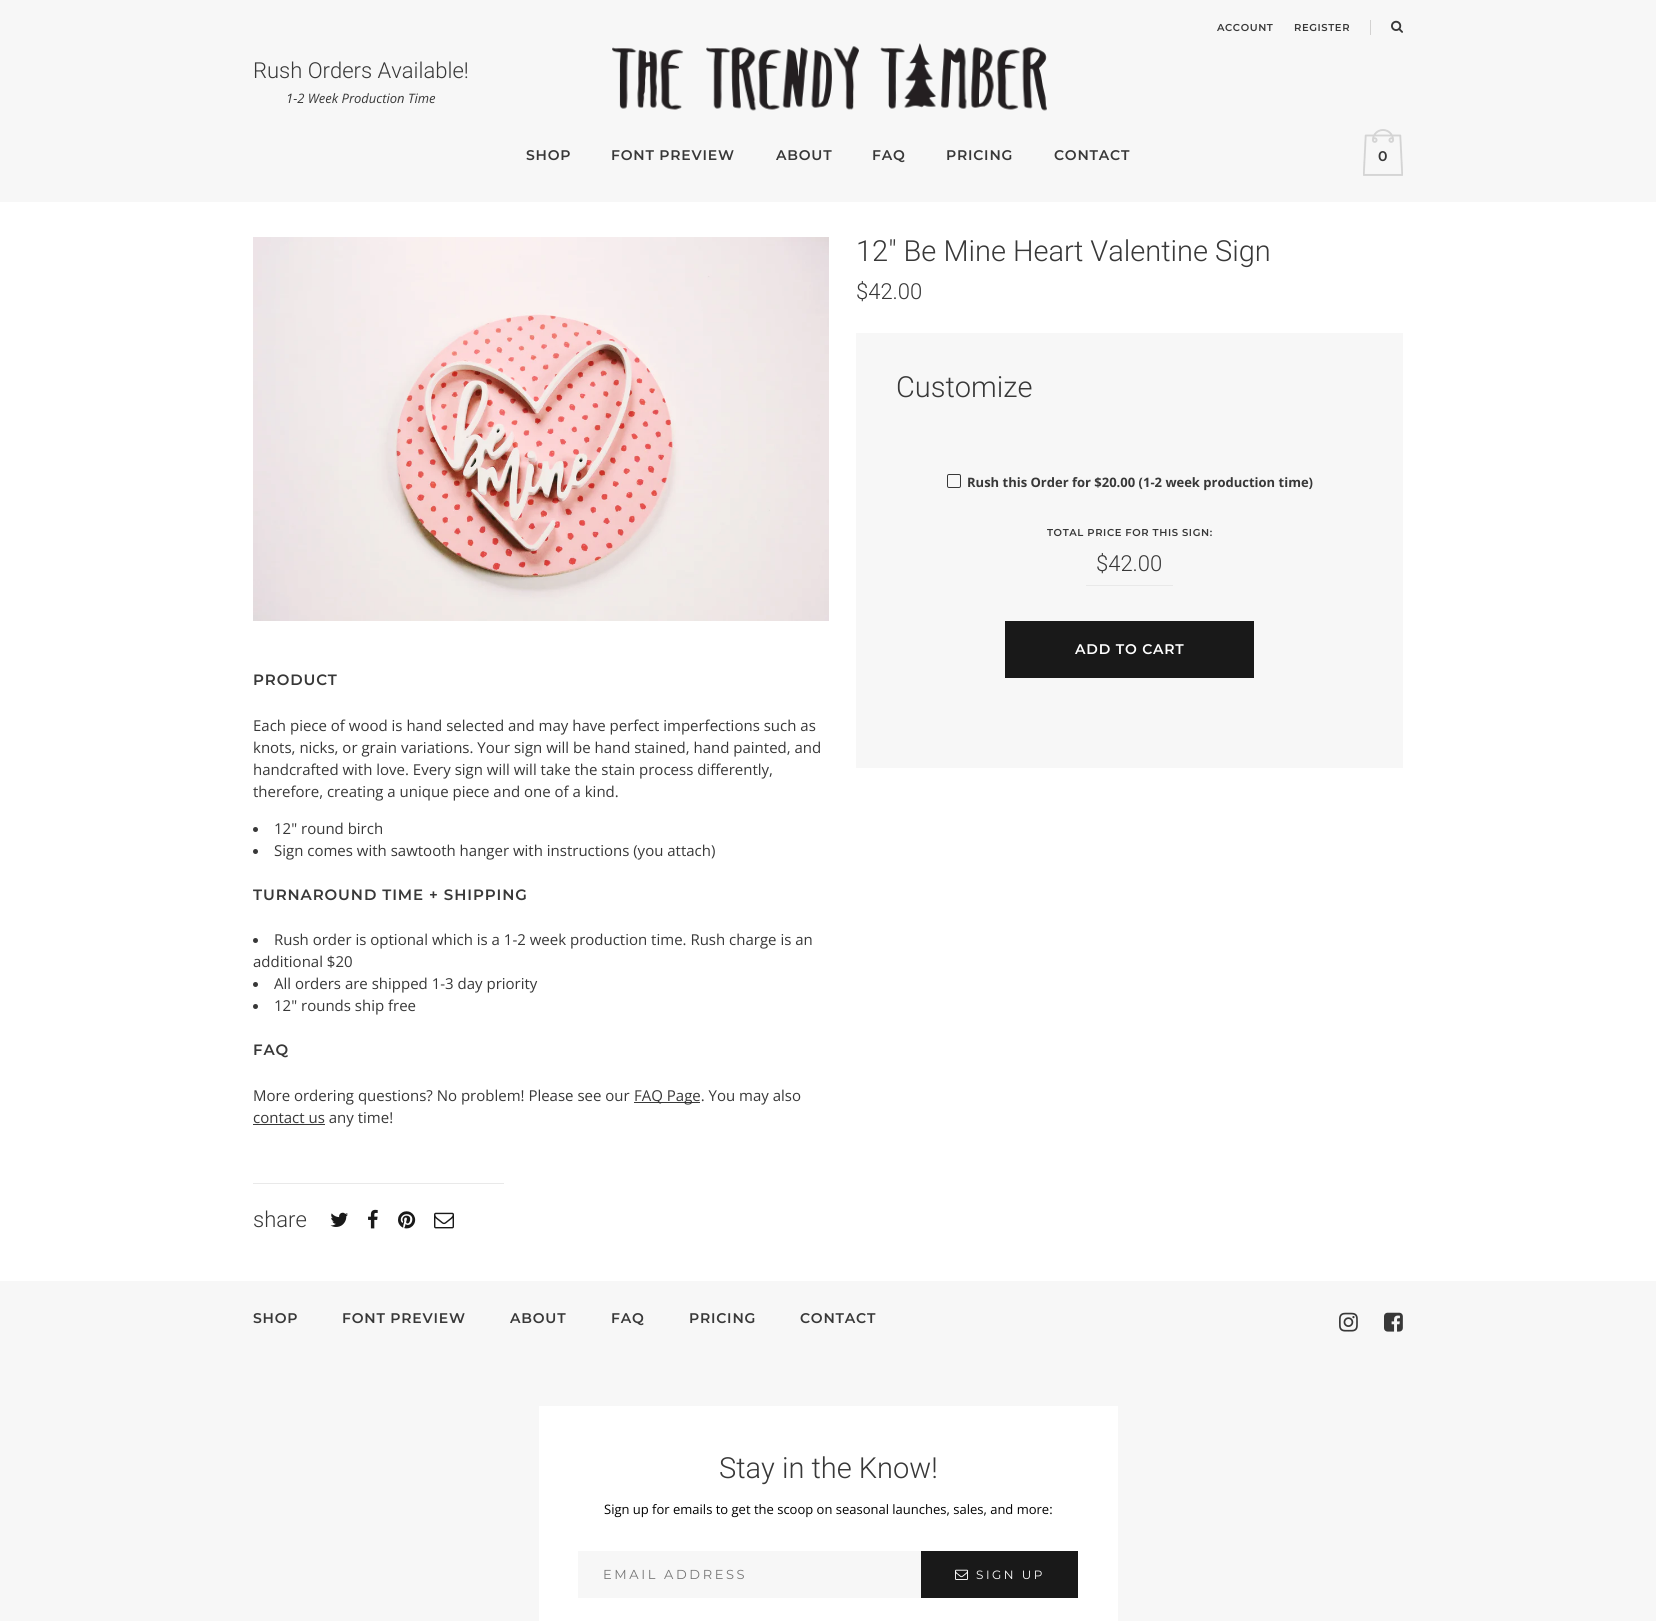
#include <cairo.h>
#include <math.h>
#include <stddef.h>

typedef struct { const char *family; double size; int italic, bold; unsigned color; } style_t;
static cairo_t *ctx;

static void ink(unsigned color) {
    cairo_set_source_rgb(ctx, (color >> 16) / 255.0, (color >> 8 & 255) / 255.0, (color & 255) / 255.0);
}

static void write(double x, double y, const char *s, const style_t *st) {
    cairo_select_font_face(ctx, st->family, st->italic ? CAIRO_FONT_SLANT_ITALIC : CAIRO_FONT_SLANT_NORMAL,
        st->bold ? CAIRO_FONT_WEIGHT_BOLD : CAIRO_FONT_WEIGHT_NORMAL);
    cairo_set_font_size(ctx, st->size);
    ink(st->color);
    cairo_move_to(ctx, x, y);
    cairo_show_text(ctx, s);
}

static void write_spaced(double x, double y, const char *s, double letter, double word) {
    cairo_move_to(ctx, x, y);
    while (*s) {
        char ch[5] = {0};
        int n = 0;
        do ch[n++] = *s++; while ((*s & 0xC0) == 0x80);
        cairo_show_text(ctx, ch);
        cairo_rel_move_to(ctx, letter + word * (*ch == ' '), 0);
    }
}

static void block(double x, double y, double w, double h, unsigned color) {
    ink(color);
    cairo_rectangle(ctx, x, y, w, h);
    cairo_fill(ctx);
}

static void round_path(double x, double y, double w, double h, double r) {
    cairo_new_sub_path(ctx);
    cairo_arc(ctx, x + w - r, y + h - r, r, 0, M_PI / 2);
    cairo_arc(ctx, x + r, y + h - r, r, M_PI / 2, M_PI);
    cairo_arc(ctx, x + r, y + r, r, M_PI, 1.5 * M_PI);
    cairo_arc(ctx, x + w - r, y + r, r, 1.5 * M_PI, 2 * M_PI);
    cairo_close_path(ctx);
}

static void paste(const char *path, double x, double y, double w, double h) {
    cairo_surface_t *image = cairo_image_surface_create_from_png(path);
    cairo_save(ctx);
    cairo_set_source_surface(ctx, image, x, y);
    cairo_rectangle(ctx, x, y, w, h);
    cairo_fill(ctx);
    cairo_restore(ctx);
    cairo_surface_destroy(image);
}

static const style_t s1 = {"Roboto Light", 22, 0, 0, 0x383838};
static const style_t s2 = {"Open Sans", 13, 1, 0, 0x383838};
static const style_t s3 = {"Montserrat SemiBold", 14, 0, 0, 0x383838};
static const style_t s4 = {"Roboto Light", 29, 0, 0, 0x383838};
static const style_t s5 = {"Open Sans", 13, 0, 1, 0x383838};
static const style_t s6 = {"Open Sans", 15, 0, 0, 0x383838};
static const style_t s7 = {"Open Sans", 13, 0, 0, 0x000000};

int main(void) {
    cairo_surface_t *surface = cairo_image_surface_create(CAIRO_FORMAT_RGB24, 1656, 1621);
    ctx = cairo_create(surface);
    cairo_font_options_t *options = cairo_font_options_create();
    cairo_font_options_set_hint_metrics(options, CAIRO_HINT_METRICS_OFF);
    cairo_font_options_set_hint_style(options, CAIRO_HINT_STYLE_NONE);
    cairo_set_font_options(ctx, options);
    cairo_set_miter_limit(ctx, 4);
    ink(0xffffff);
    cairo_paint(ctx);
    block(0, 0, 1656, 202, 0xf7f7f7);
    cairo_select_font_face(ctx, "Montserrat SemiBold", CAIRO_FONT_SLANT_NORMAL, CAIRO_FONT_WEIGHT_NORMAL);
    cairo_set_font_size(ctx, 10);
    ink(0x383838);
    write_spaced(1217, 31, "ACCOUNT", 0.6, 0);
    write_spaced(1294, 31, "REGISTER", 0.6, 0);
    block(1370, 20, 1, 15, 0xd3d2d1);
    paste("pic1.png", 1391, 20, 12, 13);
    write(253, 78, "Rush Orders Available!", &s1);
    write(286, 103, "1-2 Week Production Time", &s2);
    paste("pic2.png", 612, 43, 435, 68);
    cairo_select_font_face(ctx, "Montserrat SemiBold", CAIRO_FONT_SLANT_NORMAL, CAIRO_FONT_WEIGHT_NORMAL);
    cairo_set_font_size(ctx, 14);
    write_spaced(526, 160, "SHOP", 0.8, 0);
    write_spaced(611, 160, "FONT PREVIEW", 0.8, 0);
    write_spaced(776, 160, "ABOUT", 0.8, 0);
    write_spaced(872, 160, "FAQ", 0.8, 0);
    write_spaced(946, 160, "PRICING", 0.8, 0);
    write_spaced(1054, 160, "CONTACT", 0.8, 0);
    paste("pic3.png", 1363, 129, 40, 47);
    write(1378, 161, "0", &s3);
    write(856, 261, "12\" Be Mine Heart Valentine Sign", &s4);
    write(856, 299, "$42.00", &s1);
    block(856, 333, 547, 435, 0xf7f7f7);
    write(896, 397, "Customize", &s4);
    round_path(947.5, 474.5, 13, 13, 1.5);
    cairo_set_line_width(ctx, 1);
    cairo_stroke(ctx);
    write(967, 487, "Rush this Order for $20.00 (1-2 week production time)", &s5);
    cairo_select_font_face(ctx, "Montserrat SemiBold", CAIRO_FONT_SLANT_NORMAL, CAIRO_FONT_WEIGHT_NORMAL);
    cairo_set_font_size(ctx, 10);
    write_spaced(1047, 536, "TOTAL PRICE FOR THIS SIGN:", 0.6, 0);
    block(1086, 585, 87, 1, 0xe9e9e9);
    write(1096, 571, "$42.00", &s1);
    block(1005, 621, 249, 57, 0x191919);
    cairo_select_font_face(ctx, "Montserrat SemiBold", CAIRO_FONT_SLANT_NORMAL, CAIRO_FONT_WEIGHT_NORMAL);
    cairo_set_font_size(ctx, 14);
    ink(0xffffff);
    write_spaced(1075, 654, "ADD TO CART", 0.8, 0);
    paste("pic4.png", 253, 237, 576, 384);
    cairo_set_font_size(ctx, 15);
    ink(0x383838);
    write_spaced(253, 685, "PRODUCT", 0.9, 0);
    write(253, 731, "Each piece of wood is hand selected and may have perfect imperfections such as", &s6);
    write(253, 753, "knots, nicks, or grain variations. Your sign will be hand stained, hand painted, and", &s6);
    write(253, 775, "handcrafted with love. Every sign will will take the stain process differently,", &s6);
    write(253, 797, "therefore, creating a unique piece and one of a kind.", &s6);
    cairo_new_path(ctx);
    cairo_arc(ctx, 255.5, 829.5, 2.5, 0, 2 * M_PI);
    cairo_fill(ctx);
    write(274, 834, "12\" round birch", &s6);
    cairo_new_path(ctx);
    cairo_arc(ctx, 255.5, 851.5, 2.5, 0, 2 * M_PI);
    cairo_fill(ctx);
    write(274, 856, "Sign comes with sawtooth hanger with instructions (you attach)", &s6);
    cairo_select_font_face(ctx, "Montserrat SemiBold", CAIRO_FONT_SLANT_NORMAL, CAIRO_FONT_WEIGHT_NORMAL);
    write_spaced(253, 900, "TURNAROUND TIME + SHIPPING", 0.9, 0);
    cairo_new_path(ctx);
    cairo_arc(ctx, 255.5, 940.5, 2.5, 0, 2 * M_PI);
    cairo_fill(ctx);
    write(274, 945, "Rush order is optional which is a 1-2 week production time. Rush charge is an", &s6);
    write(253, 967, "additional $20", &s6);
    cairo_new_path(ctx);
    cairo_arc(ctx, 255.5, 984.5, 2.5, 0, 2 * M_PI);
    cairo_fill(ctx);
    write(274, 989, "All orders are shipped 1-3 day priority", &s6);
    cairo_new_path(ctx);
    cairo_arc(ctx, 255.5, 1006.5, 2.5, 0, 2 * M_PI);
    cairo_fill(ctx);
    write(274, 1011, "12\" rounds ship free", &s6);
    cairo_select_font_face(ctx, "Montserrat SemiBold", CAIRO_FONT_SLANT_NORMAL, CAIRO_FONT_WEIGHT_NORMAL);
    write_spaced(253, 1055, "FAQ", 0.9, 0);
    write(253, 1101, "More ordering questions? No problem! Please see our", &s6);
    block(634, 1102, 66, 1, 0x383838);
    write(634, 1101, "FAQ Page. You may also", &s6);
    block(253, 1124, 72, 1, 0x383838);
    write(253, 1123, "contact us any time!", &s6);
    block(253, 1183, 251, 1, 0xe9e9e9);
    write(253, 1227, "share", &s1);
    paste("pic5.png", 330, 1212, 18, 15);
    paste("pic6.png", 368, 1209, 10, 20);
    paste("pic7.png", 398, 1211, 18, 18);
    paste("pic8.png", 434, 1212, 20, 17);
    block(0, 1281, 1656, 340, 0xf7f7f7);
    cairo_select_font_face(ctx, "Montserrat SemiBold", CAIRO_FONT_SLANT_NORMAL, CAIRO_FONT_WEIGHT_NORMAL);
    cairo_set_font_size(ctx, 14);
    ink(0x383838);
    write_spaced(253, 1323, "SHOP", 0.8, 0);
    write_spaced(342, 1323, "FONT PREVIEW", 0.8, 0);
    write_spaced(510, 1323, "ABOUT", 0.8, 0);
    write_spaced(611, 1323, "FAQ", 0.8, 0);
    write_spaced(689, 1323, "PRICING", 0.8, 0);
    write_spaced(800, 1323, "CONTACT", 0.8, 0);
    paste("pic9.png", 1339, 1312, 19, 20);
    paste("pic10.png", 1384, 1312, 19, 20);
    block(539, 1406, 579, 215, 0xffffff);
    write(719, 1478, "Stay in the Know!", &s4);
    write(604, 1514, "Sign up for emails to get the scoop on seasonal launches, sales, and more:", &s7);
    block(578, 1551, 343, 47, 0xf7f7f7);
    cairo_select_font_face(ctx, "Montserrat", CAIRO_FONT_SLANT_NORMAL, CAIRO_FONT_WEIGHT_NORMAL);
    ink(0x757575);
    write_spaced(603, 1579, "EMAIL ADDRESS", 2.6, 0);
    block(921, 1551, 157, 47, 0x191919);
    paste("pic11.png", 955, 1569, 13, 11);
    cairo_set_font_size(ctx, 12);
    ink(0xffffff);
    write_spaced(976, 1579, "SIGN UP", 2.5, 0);
    cairo_surface_write_to_png(surface, "screenshot.png");
    cairo_font_options_destroy(options);
    cairo_destroy(ctx);
    cairo_surface_destroy(surface);
    return 0;
}
